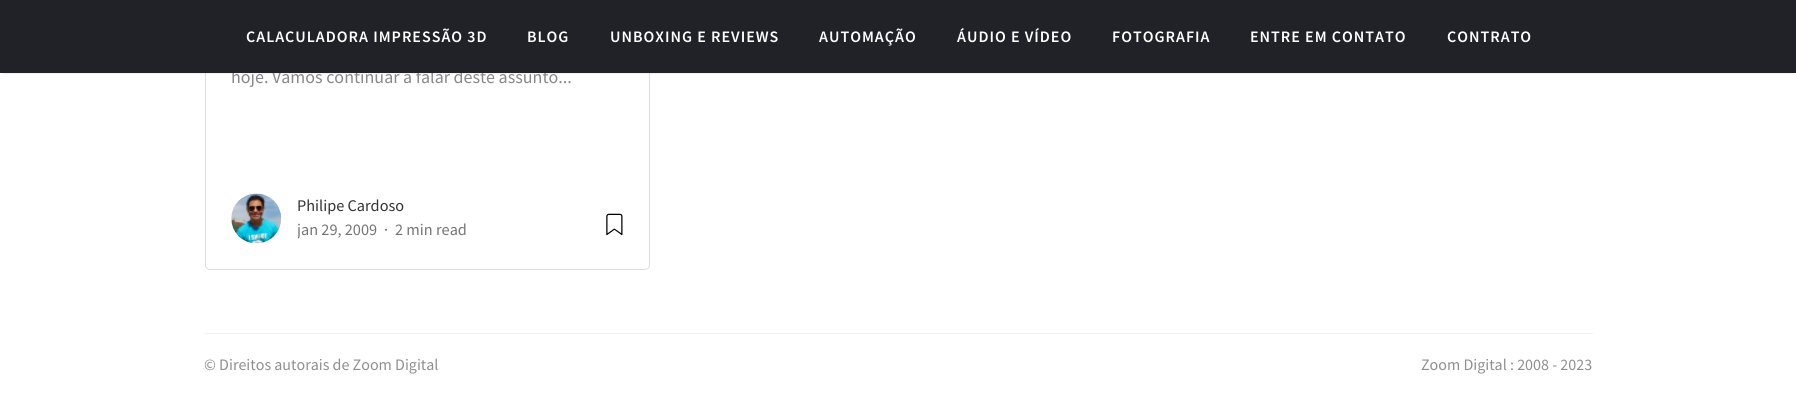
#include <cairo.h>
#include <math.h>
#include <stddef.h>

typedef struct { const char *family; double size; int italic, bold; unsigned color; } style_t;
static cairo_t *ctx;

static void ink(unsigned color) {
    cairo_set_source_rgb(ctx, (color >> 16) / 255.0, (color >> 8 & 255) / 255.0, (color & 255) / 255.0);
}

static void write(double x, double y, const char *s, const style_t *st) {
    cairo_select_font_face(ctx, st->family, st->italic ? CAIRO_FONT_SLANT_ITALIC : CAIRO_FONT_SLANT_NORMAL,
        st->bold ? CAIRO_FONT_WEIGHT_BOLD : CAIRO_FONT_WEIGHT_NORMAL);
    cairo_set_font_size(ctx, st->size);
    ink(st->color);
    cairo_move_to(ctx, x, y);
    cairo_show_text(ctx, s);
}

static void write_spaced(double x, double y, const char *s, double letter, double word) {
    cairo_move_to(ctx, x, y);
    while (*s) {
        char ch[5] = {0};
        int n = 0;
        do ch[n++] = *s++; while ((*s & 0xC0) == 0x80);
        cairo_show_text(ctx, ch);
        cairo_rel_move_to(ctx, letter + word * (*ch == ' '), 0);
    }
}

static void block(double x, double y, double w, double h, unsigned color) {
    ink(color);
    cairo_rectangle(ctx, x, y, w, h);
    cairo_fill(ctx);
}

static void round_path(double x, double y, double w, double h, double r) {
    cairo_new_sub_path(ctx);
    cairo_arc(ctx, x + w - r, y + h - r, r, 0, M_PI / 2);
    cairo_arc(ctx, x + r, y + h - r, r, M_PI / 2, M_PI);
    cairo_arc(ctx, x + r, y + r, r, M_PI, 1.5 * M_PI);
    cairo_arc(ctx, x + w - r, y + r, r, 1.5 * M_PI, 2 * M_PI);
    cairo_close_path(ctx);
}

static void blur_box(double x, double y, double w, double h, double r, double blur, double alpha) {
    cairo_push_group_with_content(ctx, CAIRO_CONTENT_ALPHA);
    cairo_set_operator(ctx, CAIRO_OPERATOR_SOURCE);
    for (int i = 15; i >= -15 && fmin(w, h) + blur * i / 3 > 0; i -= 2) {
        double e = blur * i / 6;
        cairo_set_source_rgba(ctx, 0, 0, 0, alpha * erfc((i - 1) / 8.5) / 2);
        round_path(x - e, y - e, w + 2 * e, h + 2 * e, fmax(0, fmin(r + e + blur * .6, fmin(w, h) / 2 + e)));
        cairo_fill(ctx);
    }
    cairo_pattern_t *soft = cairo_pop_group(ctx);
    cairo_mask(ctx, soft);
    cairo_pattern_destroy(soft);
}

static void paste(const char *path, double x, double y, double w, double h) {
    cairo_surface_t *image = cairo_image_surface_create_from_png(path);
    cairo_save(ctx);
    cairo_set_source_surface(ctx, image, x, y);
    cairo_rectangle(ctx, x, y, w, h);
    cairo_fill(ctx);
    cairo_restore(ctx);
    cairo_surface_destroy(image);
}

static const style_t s1 = {"Source Sans Pro", 18, 0, 0, 0x888888};
static const style_t s2 = {"Source Sans Pro", 16.25, 0, 0, 0x333333};
static const style_t s3 = {"Source Sans Pro", 16.25, 0, 0, 0x757575};
static const style_t s4 = {"Source Sans Pro", 16.25, 0, 0, 0x666666};
static const style_t s5 = {"Source Sans Pro", 16, 0, 0, 0x8f8f8f};

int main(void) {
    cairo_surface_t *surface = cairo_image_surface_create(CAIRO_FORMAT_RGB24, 1796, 411);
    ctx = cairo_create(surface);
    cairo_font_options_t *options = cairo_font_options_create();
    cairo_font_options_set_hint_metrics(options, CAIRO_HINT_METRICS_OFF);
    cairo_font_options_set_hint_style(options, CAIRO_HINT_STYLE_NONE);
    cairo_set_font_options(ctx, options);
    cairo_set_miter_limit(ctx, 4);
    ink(0xffffff);
    cairo_paint(ctx);
    round_path(205.5, -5.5, 444, 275, 4.5);
    ink(0xdfdfdf);
    cairo_set_line_width(ctx, 1);
    cairo_stroke(ctx);
    ink(0x000000);
    blur_box(3, -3, 1791, 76, 0, 1, 0.15);
    write(231, 83, "hoje. Vamos continuar a falar deste assunto...", &s1);
    block(0, 0, 1796, 73, 0x202227);
    cairo_select_font_face(ctx, "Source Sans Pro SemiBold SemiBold", CAIRO_FONT_SLANT_NORMAL, CAIRO_FONT_WEIGHT_NORMAL);
    cairo_set_font_size(ctx, 16);
    ink(0xffffff);
    write_spaced(246, 42, "CALACULADORA IMPRESSÃO 3D", 1, 0);
    write_spaced(527, 42, "BLOG", 1, 0);
    write_spaced(610, 42, "UNBOXING E REVIEWS", 1, 0);
    write_spaced(819, 42, "AUTOMAÇÃO", 1, 0);
    write_spaced(957, 42, "ÁUDIO E VÍDEO", 1, 0);
    write_spaced(1112, 42, "FOTOGRAFIA", 1, 0);
    write_spaced(1250, 42, "ENTRE EM CONTATO", 1, 0);
    write_spaced(1447, 42, "CONTRATO", 1, 0);
    paste("pic1.png", 231, 193, 51, 51);
    write(297, 211, "Philipe Cardoso", &s2);
    cairo_save(ctx);
    cairo_rectangle(ctx, 298, 194, 170, 49);
    cairo_clip(ctx);
    write(297, 235, "jan 29, 2009", &s3);
    cairo_restore(ctx);
    write(384, 235, "·", &s4);
    write(395, 235, "2 min read", &s3);
    paste("pic2.png", 606, 213, 17, 23);
    block(205, 333, 1388, 1, 0xf2f2f2);
    write(204, 370, "© Direitos autorais de Zoom Digital", &s5);
    write(1421, 370, "Zoom Digital : 2008 - 2023", &s5);
    cairo_surface_write_to_png(surface, "screenshot.png");
    cairo_font_options_destroy(options);
    cairo_destroy(ctx);
    cairo_surface_destroy(surface);
    return 0;
}
